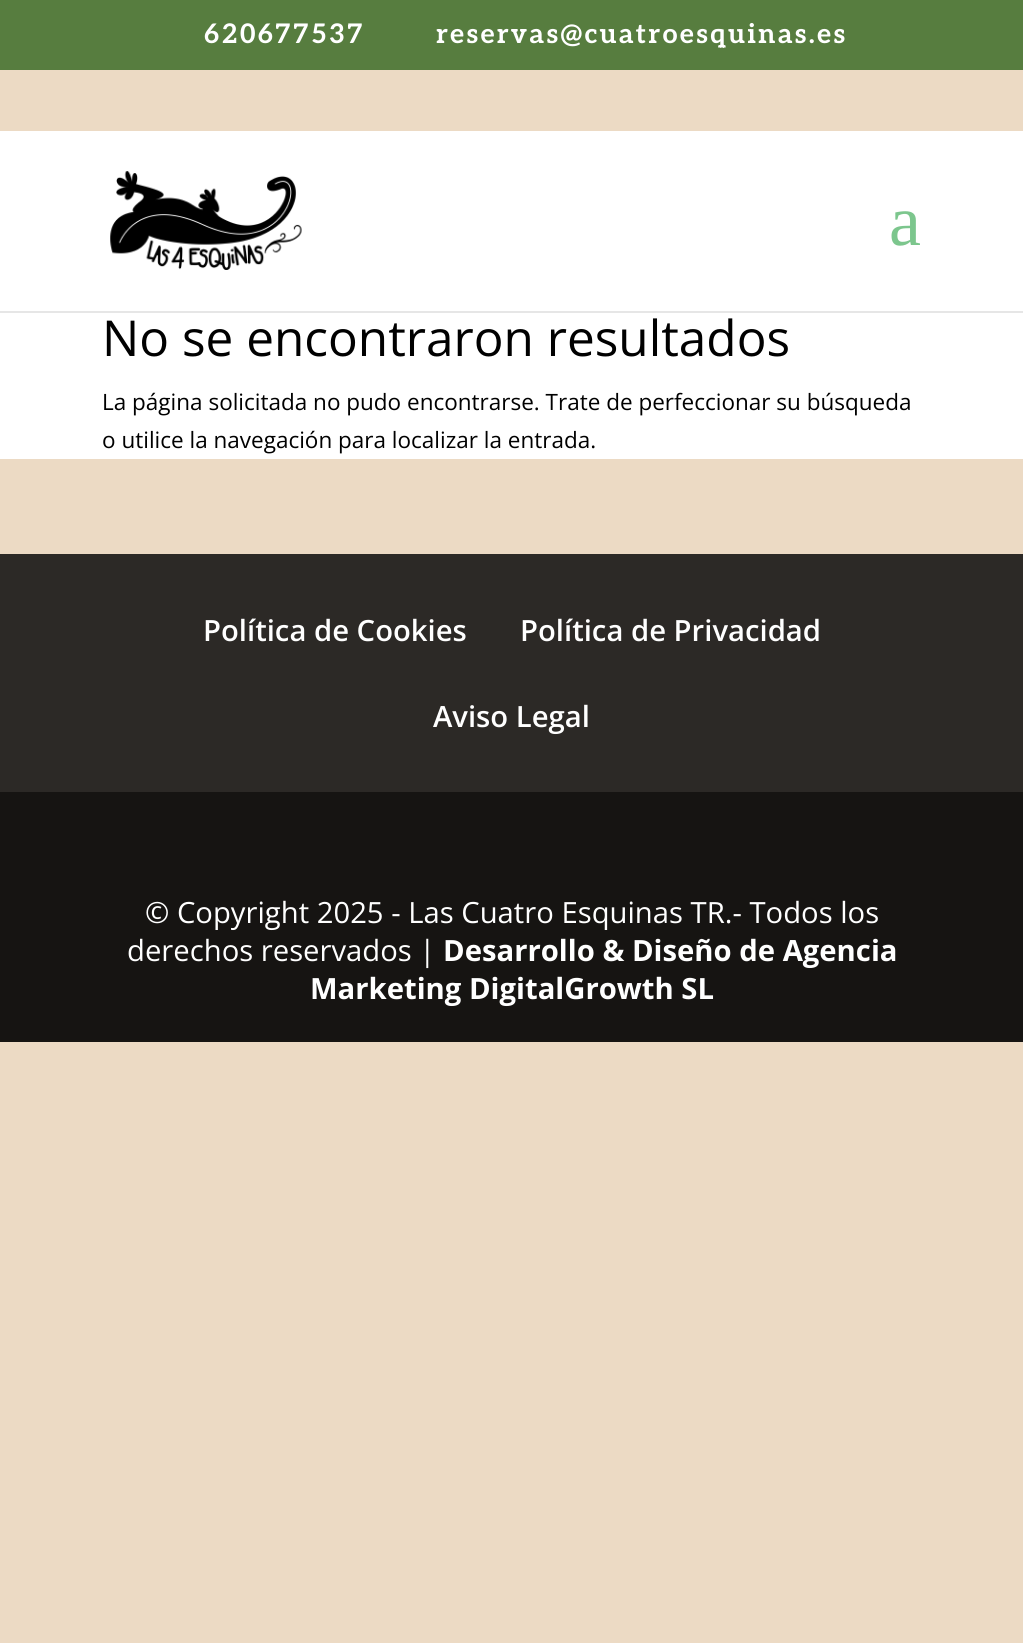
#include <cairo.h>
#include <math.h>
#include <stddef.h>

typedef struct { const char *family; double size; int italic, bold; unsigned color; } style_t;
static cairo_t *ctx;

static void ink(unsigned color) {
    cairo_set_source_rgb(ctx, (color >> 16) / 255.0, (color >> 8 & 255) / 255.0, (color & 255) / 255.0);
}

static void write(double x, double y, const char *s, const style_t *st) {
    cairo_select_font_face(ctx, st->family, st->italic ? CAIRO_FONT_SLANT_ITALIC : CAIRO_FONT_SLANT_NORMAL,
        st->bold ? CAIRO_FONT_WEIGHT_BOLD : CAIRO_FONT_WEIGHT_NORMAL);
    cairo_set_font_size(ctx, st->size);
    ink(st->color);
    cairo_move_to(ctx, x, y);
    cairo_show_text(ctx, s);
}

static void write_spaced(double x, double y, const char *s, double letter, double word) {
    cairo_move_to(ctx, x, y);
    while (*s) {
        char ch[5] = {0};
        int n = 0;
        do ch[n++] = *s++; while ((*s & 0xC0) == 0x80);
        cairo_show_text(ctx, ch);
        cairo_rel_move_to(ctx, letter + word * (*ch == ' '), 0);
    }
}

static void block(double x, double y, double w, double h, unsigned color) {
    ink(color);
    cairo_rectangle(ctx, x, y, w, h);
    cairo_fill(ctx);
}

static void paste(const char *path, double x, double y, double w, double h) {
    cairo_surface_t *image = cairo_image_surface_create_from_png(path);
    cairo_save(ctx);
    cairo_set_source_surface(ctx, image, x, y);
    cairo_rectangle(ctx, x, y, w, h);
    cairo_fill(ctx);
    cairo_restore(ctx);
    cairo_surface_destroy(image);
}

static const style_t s1 = {"Liberation Serif", 72, 0, 0, 0x7cc68d};
static const style_t s2 = {"Open Sans", 49.5, 0, 0, 0x000000};
static const style_t s3 = {"Open Sans", 22.5, 0, 0, 0x000000};
static const style_t s4 = {"Open Sans SemiBold", 29.25, 0, 0, 0xffffff};
static const style_t s5 = {"Open Sans", 29.25, 0, 0, 0xffffff};
static const style_t s6 = {"Open Sans", 29.25, 0, 1, 0xffffff};

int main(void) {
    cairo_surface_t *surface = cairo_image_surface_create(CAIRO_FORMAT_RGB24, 1023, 1643);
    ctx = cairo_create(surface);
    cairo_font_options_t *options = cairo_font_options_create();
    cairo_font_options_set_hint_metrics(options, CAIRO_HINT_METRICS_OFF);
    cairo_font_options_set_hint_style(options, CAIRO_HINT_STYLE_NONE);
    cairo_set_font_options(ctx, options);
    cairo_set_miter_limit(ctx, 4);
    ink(0xecdac4);
    cairo_paint(ctx);
    block(0, 0, 1023, 70, 0x577d3f);
    cairo_select_font_face(ctx, "Aleo", CAIRO_FONT_SLANT_NORMAL, CAIRO_FONT_WEIGHT_BOLD);
    cairo_set_font_size(ctx, 27);
    ink(0xffffff);
    write_spaced(204, 43, "620677537", 2.25, 0);
    write_spaced(436, 43, "reservas@cuatroesquinas.es", 2.25, 0);
    ink(0xe6e6e6);
    cairo_new_path(ctx);
    cairo_move_to(ctx, 0, 310);
    cairo_line_to(ctx, 0, 313);
    cairo_line_to(ctx, 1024, 313);
    cairo_line_to(ctx, 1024, 133);
    cairo_line_to(ctx, 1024, 310);
    cairo_close_path(ctx);
    cairo_fill(ctx);
    block(0, 131, 1023, 180, 0xffffff);
    paste("pic1.png", 110, 171, 192, 99);
    write(889, 245, "a", &s1);
    block(0, 313, 1023, 146, 0xffffff);
    write(102, 356, "No se encontraron resultados", &s2);
    write(102, 410, "La página solicitada no pudo encontrarse. Trate de perfeccionar su búsqueda", &s3);
    write(102, 448, "o utilice la navegación para localizar la entrada.", &s3);
    block(0, 554, 1023, 238, 0x2c2926);
    write(203, 641, "Política de Cookies", &s4);
    write(520, 641, "Política de Privacidad", &s4);
    write(433, 727, "Aviso Legal", &s4);
    block(0, 792, 1023, 250, 0x161412);
    write(145, 923, "© Copyright 2025 - Las Cuatro Esquinas TR.- Todos los", &s5);
    write(127, 961, "derechos reservados |", &s5);
    write(443, 961, "Desarrollo & Diseño de Agencia", &s6);
    write(310, 999, "Marketing DigitalGrowth SL", &s6);
    cairo_surface_write_to_png(surface, "screenshot.png");
    cairo_font_options_destroy(options);
    cairo_destroy(ctx);
    cairo_surface_destroy(surface);
    return 0;
}
